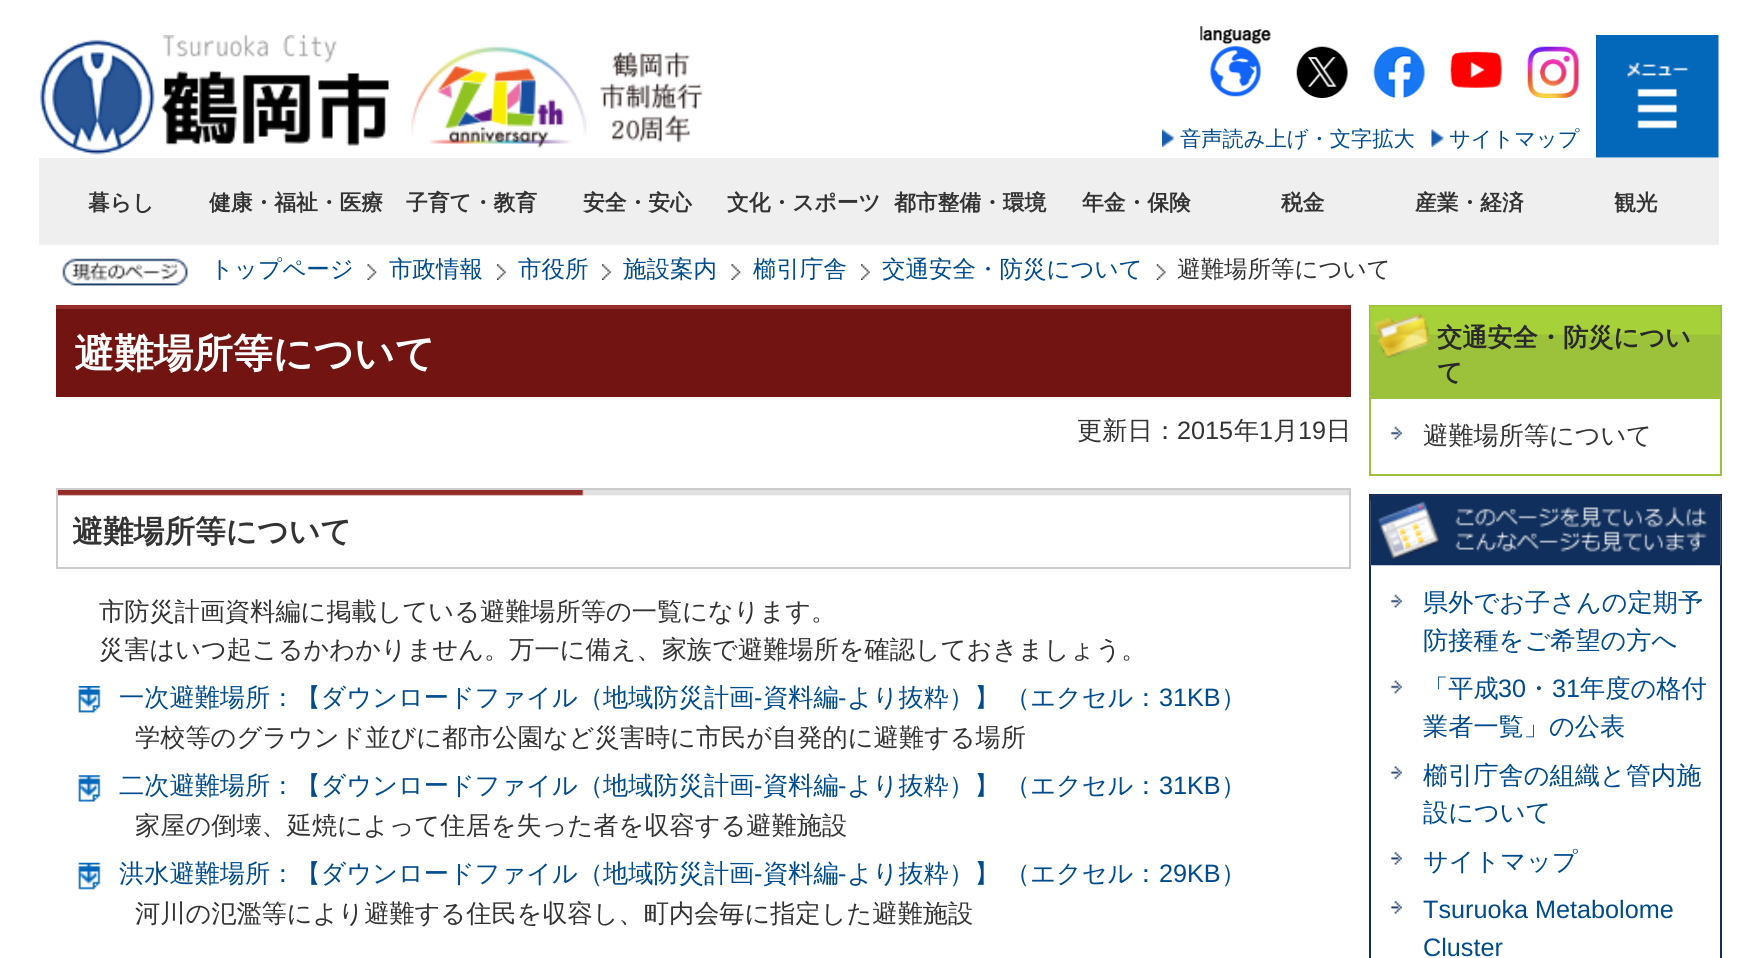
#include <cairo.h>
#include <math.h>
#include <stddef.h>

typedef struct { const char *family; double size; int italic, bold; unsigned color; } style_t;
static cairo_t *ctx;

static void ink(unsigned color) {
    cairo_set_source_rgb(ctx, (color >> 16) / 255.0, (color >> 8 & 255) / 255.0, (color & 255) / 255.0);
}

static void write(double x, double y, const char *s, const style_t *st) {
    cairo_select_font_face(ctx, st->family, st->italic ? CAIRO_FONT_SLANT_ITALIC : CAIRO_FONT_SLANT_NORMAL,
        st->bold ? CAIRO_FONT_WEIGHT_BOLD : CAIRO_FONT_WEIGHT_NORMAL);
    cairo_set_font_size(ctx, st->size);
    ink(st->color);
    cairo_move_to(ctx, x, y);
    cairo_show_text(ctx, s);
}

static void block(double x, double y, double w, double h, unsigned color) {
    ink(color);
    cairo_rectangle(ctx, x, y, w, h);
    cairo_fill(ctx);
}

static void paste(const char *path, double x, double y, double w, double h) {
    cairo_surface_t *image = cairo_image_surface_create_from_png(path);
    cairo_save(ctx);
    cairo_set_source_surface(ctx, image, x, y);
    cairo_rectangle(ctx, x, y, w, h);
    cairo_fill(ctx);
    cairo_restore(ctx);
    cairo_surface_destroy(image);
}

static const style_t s1 = {"WenQuanYi Zen Hei Medium", 21.25, 0, 0, 0x004b8c};
static const style_t s2 = {"WenQuanYi Zen Hei", 21.75, 0, 1, 0x333333};
static const style_t s3 = {"WenQuanYi Zen Hei Medium", 23.5, 0, 0, 0x004b8c};
static const style_t s4 = {"WenQuanYi Zen Hei Medium", 23.5, 0, 0, 0x333333};
static const style_t s5 = {"WenQuanYi Zen Hei", 39.75, 0, 1, 0xffffff};
static const style_t s6 = {"WenQuanYi Zen Hei Medium", 25.2, 0, 0, 0x333333};
static const style_t s7 = {"Liberation Sans", 25.2, 0, 0, 0x333333};
static const style_t s8 = {"WenQuanYi Zen Hei", 30.75, 0, 1, 0x333333};
static const style_t s9 = {"WenQuanYi Zen Hei Medium", 25.2, 0, 0, 0x004b8c};
static const style_t s10 = {"Liberation Sans", 25.2, 0, 0, 0x004b8c};
static const style_t s11 = {"WenQuanYi Zen Hei", 25.2, 0, 1, 0x292929};

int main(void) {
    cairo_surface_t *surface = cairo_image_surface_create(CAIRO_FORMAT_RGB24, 1756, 958);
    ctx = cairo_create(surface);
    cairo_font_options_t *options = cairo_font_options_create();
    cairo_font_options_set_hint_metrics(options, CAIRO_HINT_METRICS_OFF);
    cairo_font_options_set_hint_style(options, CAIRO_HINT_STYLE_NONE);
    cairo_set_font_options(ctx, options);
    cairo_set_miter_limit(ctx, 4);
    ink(0xffffff);
    cairo_paint(ctx);
    paste("pic1.png", 39, 35, 350, 120);
    paste("pic2.png", 411, 46, 292, 102);
    paste("pic3.png", 1200, 26, 71, 71);
    paste("pic4.png", 1296, 46, 52, 52);
    paste("pic5.png", 1373, 46, 52, 52);
    paste("pic6.png", 1450, 51, 52, 37);
    paste("pic7.png", 1527, 46, 52, 52);
    paste("pic8.png", 1162, 129, 13, 18);
    write(1180, 146, "音声読み上げ・文字拡大", &s1);
    paste("pic9.png", 1431, 129, 13, 18);
    write(1449, 146, "サイトマップ", &s1);
    paste("pic10.png", 1596, 35, 123, 123);
    block(39, 158, 1680, 87, 0xefefef);
    write(88, 210, "暮らし", &s2);
    write(209, 210, "健康・福祉・医療", &s2);
    write(406, 210, "子育て・教育", &s2);
    write(583, 210, "安全・安心", &s2);
    write(727, 210, "文化・スポーツ", &s2);
    write(894, 210, "都市整備・環境", &s2);
    write(1082, 210, "年金・保険", &s2);
    write(1281, 210, "税金", &s2);
    write(1415, 210, "産業・経済", &s2);
    write(1614, 210, "観光", &s2);
    paste("pic11.png", 62, 258, 126, 28);
    paste("pic12.png", 367, 264, 10, 16);
    write(210, 277, "トップページ", &s3);
    paste("pic13.png", 497, 264, 9, 16);
    write(389, 277, "市政情報", &s3);
    paste("pic13.png", 602, 264, 9, 16);
    write(518, 277, "市役所", &s3);
    paste("pic12.png", 731, 264, 10, 16);
    write(623, 277, "施設案内", &s3);
    paste("pic13.png", 861, 264, 9, 16);
    write(753, 277, "櫛引庁舎", &s3);
    paste("pic14.png", 1156, 264, 10, 16);
    write(882, 277, "交通安全・防災について", &s3);
    write(1177, 277, "避難場所等について", &s4);
    block(56, 309, 1295, 88, 0x711412);
    block(56, 305, 1295, 4, 0x942c29);
    write(74, 367, "避難場所等について", &s5);
    write(1077, 439, "更新日：", &s6);
    write(1177, 439, "2015", &s7);
    write(1234, 439, "年", &s6);
    write(1259, 439, "1", &s7);
    write(1273, 439, "月", &s6);
    write(1298, 439, "19", &s7);
    write(1326, 439, "日", &s6);
    paste("pic15.png", 58, 490, 1291, 6);
    cairo_rectangle(ctx, 57, 489, 1293, 79);
    ink(0xcccccc);
    cairo_stroke(ctx);
    write(72, 542, "避難場所等について", &s8);
    write(99, 620, "市防災計画資料編に掲載している避難場所等の一覧になります。", &s6);
    write(99, 658, "災害はいつ起こるかわかりません。万一に備え、家族で避難場所を確認しておきましょう。", &s6);
    paste("pic16.png", 78, 686, 23, 27);
    write(119, 706, "一次避難場所：【ダウンロードファイル（地域防災計画", &s9);
    write(754, 706, "-", &s10);
    write(763, 706, "資料編", &s9);
    write(838, 706, "-", &s10);
    write(847, 706, "より抜粋）】", &s9);
    write(1005, 706, "（エクセル：", &s9);
    write(1159, 706, "31KB", &s10);
    write(1221, 706, "）", &s9);
    write(135, 746, "学校等のグラウンド並びに都市公園など災害時に市民が自発的に避難する場所", &s6);
    paste("pic17.png", 78, 775, 23, 27);
    write(119, 794, "二次避難場所：【ダウンロードファイル（地域防災計画", &s9);
    write(754, 794, "-", &s10);
    write(763, 794, "資料編", &s9);
    write(838, 794, "-", &s10);
    write(847, 794, "より抜粋）】", &s9);
    write(1005, 794, "（エクセル：", &s9);
    write(1159, 794, "31KB", &s10);
    write(1221, 794, "）", &s9);
    write(135, 834, "家屋の倒壊、延焼によって住居を失った者を収容する避難施設", &s6);
    paste("pic18.png", 78, 862, 23, 28);
    write(119, 882, "洪水避難場所：【ダウンロードファイル（地域防災計画", &s9);
    write(754, 882, "-", &s10);
    write(763, 882, "資料編", &s9);
    write(838, 882, "-", &s10);
    write(847, 882, "より抜粋）】", &s9);
    write(1005, 882, "（エクセル：", &s9);
    write(1159, 882, "29KB", &s10);
    write(1221, 882, "）", &s9);
    write(135, 922, "河川の氾濫等により避難する住民を収容し、町内会毎に指定した避難施設", &s6);
    cairo_rectangle(ctx, 1370, 306, 351, 169);
    ink(0x9bc23a);
    cairo_stroke(ctx);
    paste("pic19.png", 1370, 306, 351, 93);
    write(1437, 346, "交通安全・防災につい", &s11);
    write(1437, 381, "て", &s11);
    paste("pic20.png", 1390, 426, 12, 14);
    write(1423, 444, "避難場所等について", &s6);
    cairo_rectangle(ctx, 1370, 495, 351, 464);
    ink(0x102f5d);
    cairo_stroke(ctx);
    paste("pic21.png", 1370, 495, 351, 71);
    paste("pic22.png", 1370, 495, 351, 71);
    paste("pic20.png", 1390, 594, 12, 14);
    write(1423, 611, "県外でお子さんの定期予", &s9);
    write(1423, 649, "防接種をご希望の方へ", &s9);
    paste("pic23.png", 1390, 680, 12, 14);
    write(1423, 697, "「平成", &s9);
    write(1498, 697, "30", &s10);
    write(1526, 697, "・", &s9);
    write(1552, 697, "31", &s10);
    write(1580, 697, "年度の格付", &s9);
    write(1423, 735, "業者一覧」の公表", &s9);
    paste("pic24.png", 1390, 766, 12, 14);
    write(1423, 784, "櫛引庁舎の組織と管内施", &s9);
    write(1423, 821, "設について", &s9);
    paste("pic25.png", 1390, 851, 12, 14);
    write(1423, 870, "サイトマップ", &s9);
    paste("pic25.png", 1390, 900, 12, 14);
    write(1423, 918, "Tsuruoka Metabolome", &s10);
    write(1423, 956, "Cluster", &s10);
    cairo_surface_write_to_png(surface, "screenshot.png");
    cairo_font_options_destroy(options);
    cairo_destroy(ctx);
    cairo_surface_destroy(surface);
    return 0;
}
